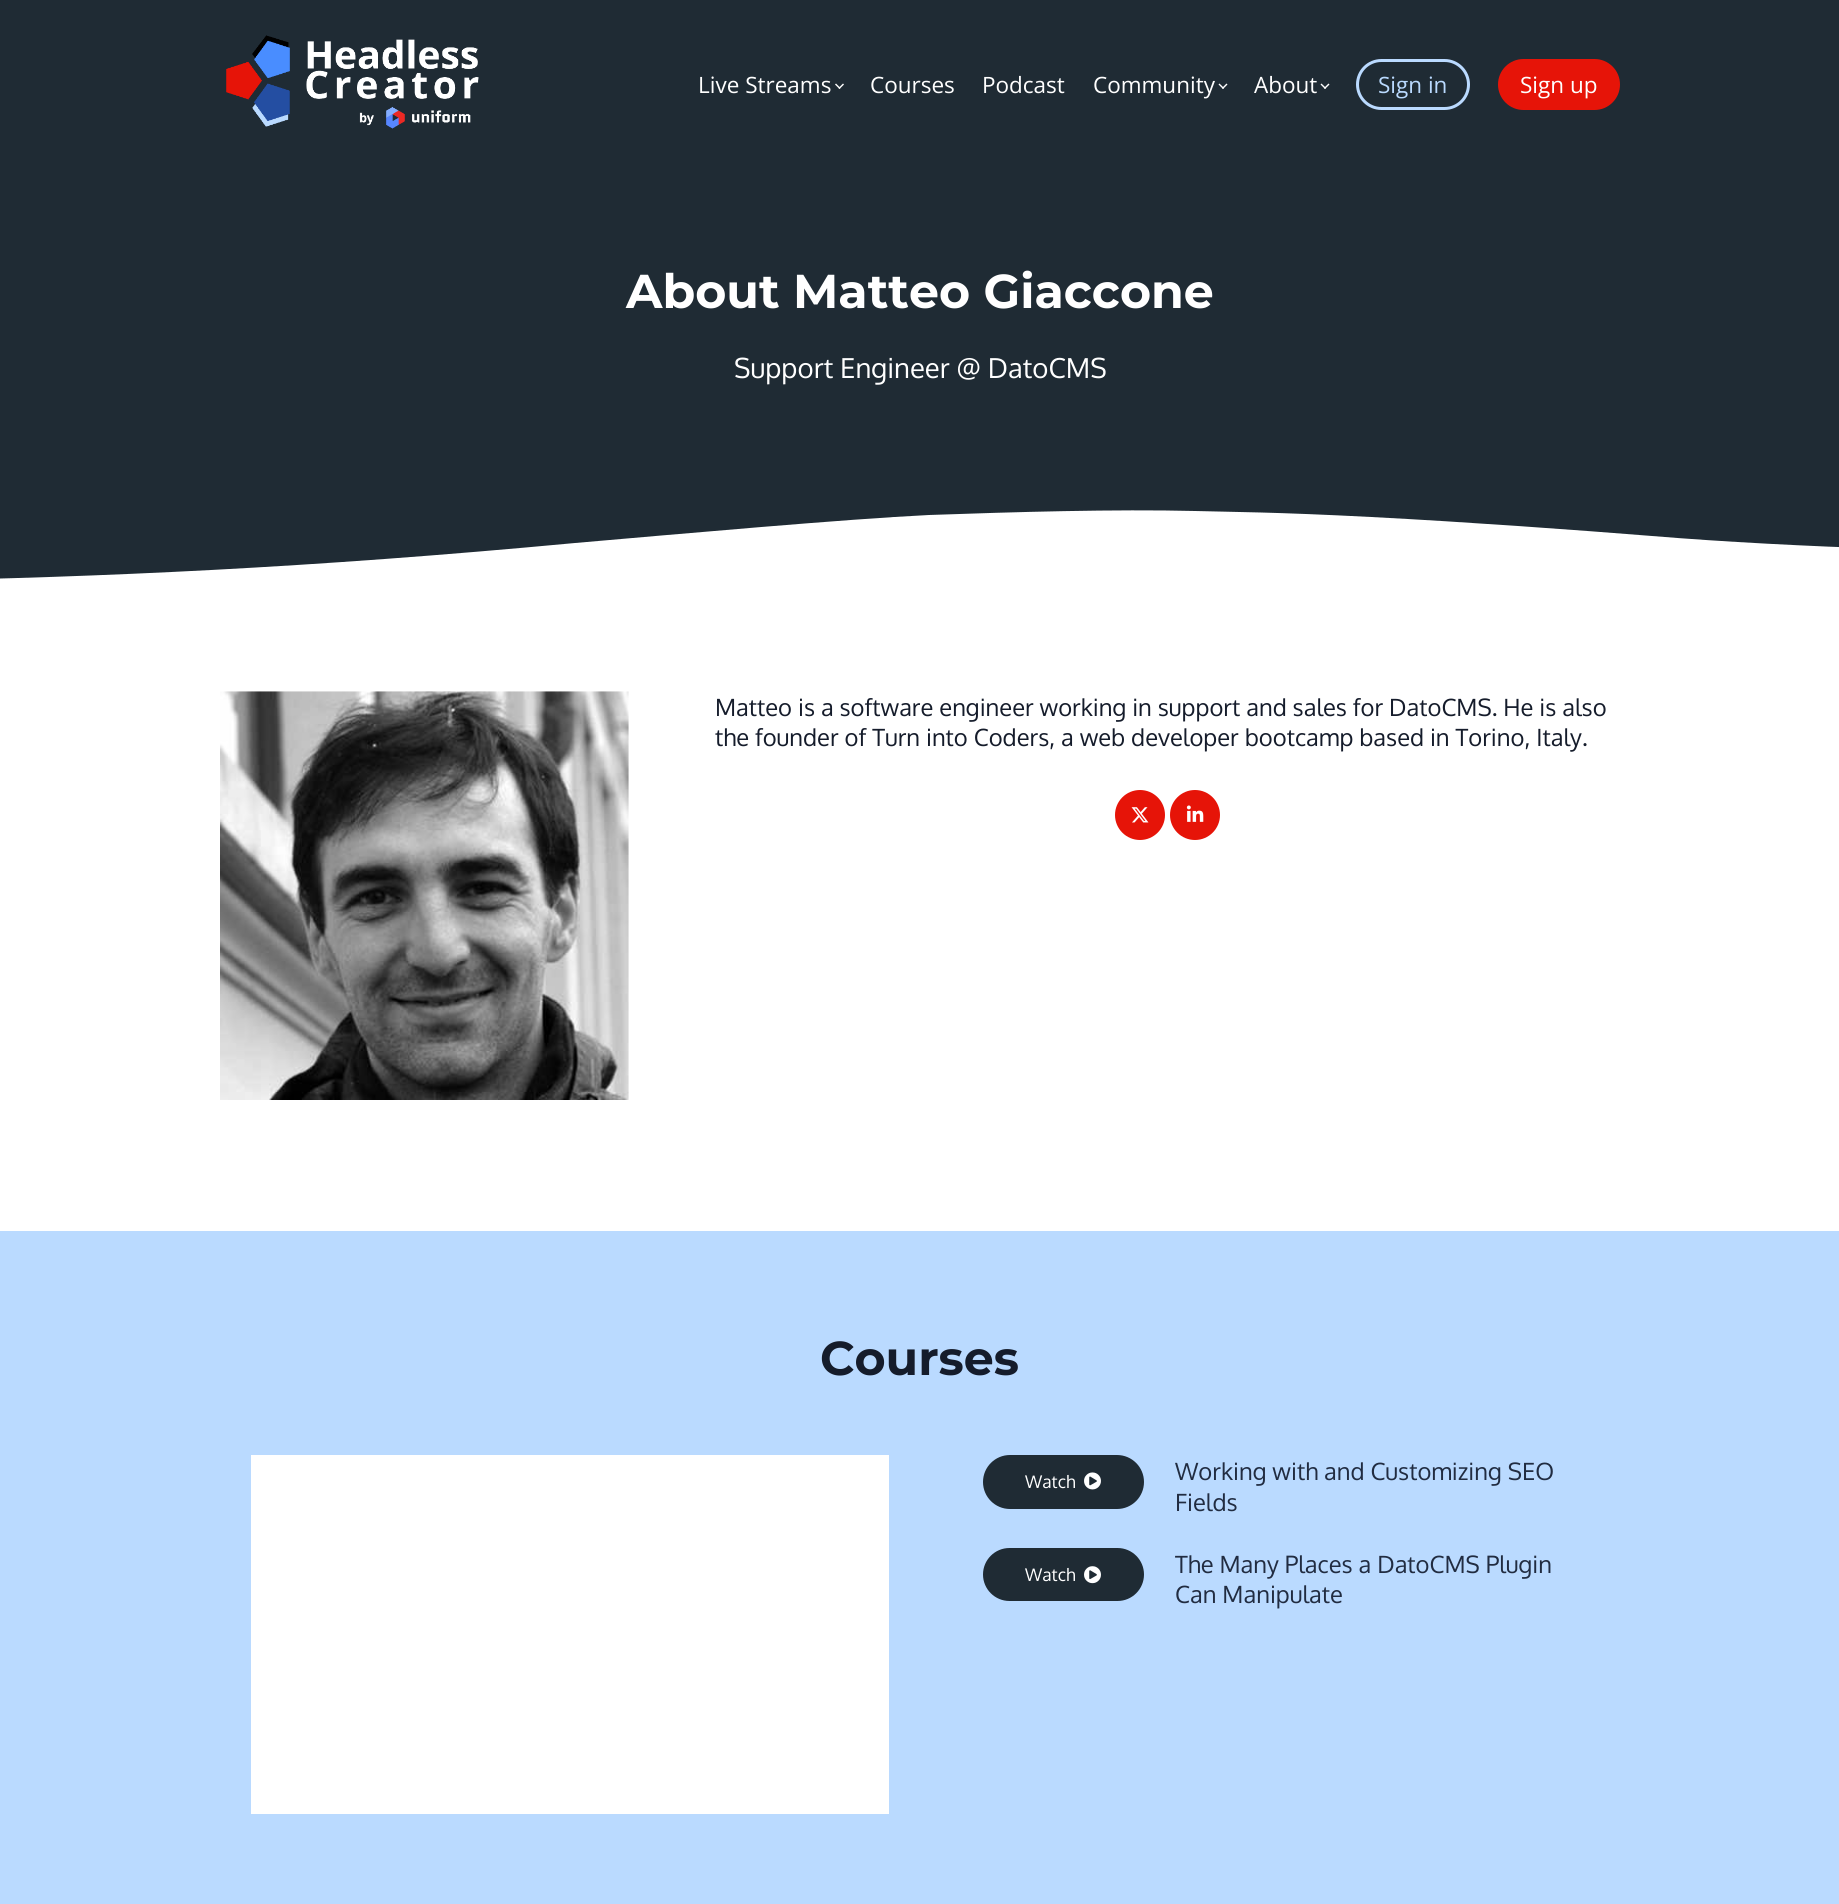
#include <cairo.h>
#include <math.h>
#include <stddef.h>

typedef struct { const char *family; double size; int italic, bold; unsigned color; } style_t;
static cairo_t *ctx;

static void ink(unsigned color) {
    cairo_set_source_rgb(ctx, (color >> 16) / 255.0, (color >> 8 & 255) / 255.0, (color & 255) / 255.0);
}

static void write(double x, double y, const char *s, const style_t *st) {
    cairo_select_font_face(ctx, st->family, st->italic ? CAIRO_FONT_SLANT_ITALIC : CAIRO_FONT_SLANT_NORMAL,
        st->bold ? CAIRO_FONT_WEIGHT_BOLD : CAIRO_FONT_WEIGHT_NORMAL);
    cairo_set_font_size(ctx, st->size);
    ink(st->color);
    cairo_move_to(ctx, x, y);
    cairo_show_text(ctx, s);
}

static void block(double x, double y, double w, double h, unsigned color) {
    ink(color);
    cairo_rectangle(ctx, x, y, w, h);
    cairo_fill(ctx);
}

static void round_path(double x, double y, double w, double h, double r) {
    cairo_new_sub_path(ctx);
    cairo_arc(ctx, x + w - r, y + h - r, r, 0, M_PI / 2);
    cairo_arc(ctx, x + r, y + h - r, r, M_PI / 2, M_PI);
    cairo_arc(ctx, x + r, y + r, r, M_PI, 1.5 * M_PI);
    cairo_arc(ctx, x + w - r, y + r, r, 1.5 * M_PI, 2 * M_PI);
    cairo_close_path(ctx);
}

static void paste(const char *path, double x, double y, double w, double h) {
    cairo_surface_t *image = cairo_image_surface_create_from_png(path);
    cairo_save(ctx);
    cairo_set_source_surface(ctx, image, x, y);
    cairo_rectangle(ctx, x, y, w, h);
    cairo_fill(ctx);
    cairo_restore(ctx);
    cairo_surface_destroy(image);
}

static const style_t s1 = {"Open Sans", 22.5, 0, 0, 0xffffff};
static const style_t s2 = {"Open Sans", 22.5, 0, 0, 0xbadaff};
static const style_t s3 = {"Montserrat", 47.5, 0, 1, 0xffffff};
static const style_t s4 = {"Oxygen", 27.5, 0, 0, 0xffffff};
static const style_t s5 = {"Oxygen", 23.75, 0, 0, 0x151c2b};
static const style_t s6 = {"Montserrat", 47.5, 0, 1, 0x151c2b};
static const style_t s7 = {"Oxygen", 17.5, 0, 0, 0xffffff};
static const style_t s8 = {"Oxygen", 23.75, 0, 0, 0x212c41};

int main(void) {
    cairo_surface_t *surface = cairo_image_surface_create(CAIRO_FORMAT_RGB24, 1839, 1904);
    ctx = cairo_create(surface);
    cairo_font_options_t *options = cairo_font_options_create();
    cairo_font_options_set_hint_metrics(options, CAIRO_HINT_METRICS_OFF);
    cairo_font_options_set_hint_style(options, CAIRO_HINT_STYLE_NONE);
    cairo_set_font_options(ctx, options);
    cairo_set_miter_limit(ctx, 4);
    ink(0xffffff);
    cairo_paint(ctx);
    block(0, 0, 1839, 508, 0x1f2b34);
    paste("pic1.png", 226, 35, 253, 94);
    write(698, 93, "Live Streams", &s1);
    cairo_new_path(ctx);
    cairo_move_to(ctx, 844, 84.5);
    cairo_line_to(ctx, 839.5, 89);
    cairo_line_to(ctx, 838.5, 88);
    cairo_line_to(ctx, 843, 83.5);
    cairo_close_path(ctx);
    cairo_fill(ctx);
    cairo_new_path(ctx);
    cairo_move_to(ctx, 840.5, 88);
    cairo_line_to(ctx, 839.5, 89);
    cairo_line_to(ctx, 835, 84.5);
    cairo_line_to(ctx, 836, 83.5);
    cairo_close_path(ctx);
    cairo_fill(ctx);
    write(870, 93, "Courses", &s1);
    write(982, 93, "Podcast", &s1);
    write(1093, 93, "Community", &s1);
    cairo_new_path(ctx);
    cairo_move_to(ctx, 1227.5, 84.5);
    cairo_line_to(ctx, 1223, 89);
    cairo_line_to(ctx, 1222, 88);
    cairo_line_to(ctx, 1226.5, 83.5);
    cairo_close_path(ctx);
    cairo_fill(ctx);
    cairo_new_path(ctx);
    cairo_move_to(ctx, 1224, 88);
    cairo_line_to(ctx, 1223, 89);
    cairo_line_to(ctx, 1218.5, 84.5);
    cairo_line_to(ctx, 1219.5, 83.5);
    cairo_close_path(ctx);
    cairo_fill(ctx);
    write(1254, 93, "About", &s1);
    cairo_new_path(ctx);
    cairo_move_to(ctx, 1329.5, 84.5);
    cairo_line_to(ctx, 1325, 89);
    cairo_line_to(ctx, 1324, 88);
    cairo_line_to(ctx, 1328.5, 83.5);
    cairo_close_path(ctx);
    cairo_fill(ctx);
    cairo_new_path(ctx);
    cairo_move_to(ctx, 1326, 88);
    cairo_line_to(ctx, 1325, 89);
    cairo_line_to(ctx, 1320.5, 84.5);
    cairo_line_to(ctx, 1321.5, 83.5);
    cairo_close_path(ctx);
    cairo_fill(ctx);
    round_path(1357.5, 60.5, 111, 48, 24);
    ink(0xbadaff);
    cairo_set_line_width(ctx, 3);
    cairo_stroke(ctx);
    write(1378, 93, "Sign in", &s2);
    ink(0xe61408);
    round_path(1498, 59, 122, 51, 25.5);
    cairo_fill(ctx);
    write(1520, 93, "Sign up", &s1);
    write(626, 308, "About Matteo Giaccone", &s3);
    write(734, 378, "Support Engineer @ DatoCMS", &s4);
    cairo_save(ctx);
    cairo_rectangle(ctx, 0, 508, 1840, 75);
    cairo_clip(ctx);
    ink(0x1f2b34);
    cairo_new_path(ctx);
    cairo_move_to(ctx, 1195, 511);
    cairo_curve_to(ctx, 1116, 509, 1014, 512, 929, 515);
    cairo_curve_to(ctx, 846, 519, 679, 534, 575, 543);
    cairo_curve_to(ctx, 308, 568, 104, 577, -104, 581);
    cairo_curve_to(ctx, -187, 583, -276, 584, -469, 580);
    cairo_curve_to(ctx, -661, 575, -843, 560, -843, 560);
    cairo_line_to(ctx, -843, 506);
    cairo_line_to(ctx, 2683, 506);
    cairo_line_to(ctx, 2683, 530);
    cairo_curve_to(ctx, 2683, 530, 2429, 555, 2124, 553);
    cairo_curve_to(ctx, 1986, 553, 1797, 548, 1652, 536);
    cairo_curve_to(ctx, 1577, 530, 1468, 522, 1371, 517);
    cairo_curve_to(ctx, 1275, 512, 1232, 512, 1195, 511);
    cairo_close_path(ctx);
    cairo_fill(ctx);
    cairo_restore(ctx);
    paste("pic2.png", 220, 691, 409, 409);
    write(715, 716, "Matteo is a software engineer working in support and sales for DatoCMS. He is also", &s5);
    write(715, 746, "the founder of Turn into Coders, a web developer bootcamp based in Torino, Italy.", &s5);
    ink(0xe61408);
    cairo_new_path(ctx);
    cairo_arc(ctx, 1140, 815, 25, 0, 2 * M_PI);
    cairo_fill(ctx);
    paste("pic3.png", 1131, 807, 18, 16);
    cairo_arc(ctx, 1195, 815, 25, 0, 2 * M_PI);
    cairo_fill(ctx);
    paste("pic4.png", 1186, 805, 18, 17);
    block(0, 1231, 1839, 673, 0xbadaff);
    write(820, 1375, "Courses", &s6);
    block(251, 1455, 638, 359, 0xffffff);
    ink(0x1f2b34);
    round_path(983, 1455, 161, 54, 27);
    cairo_fill(ctx);
    write(1025, 1488, "Watch", &s7);
    paste("pic5.png", 1084, 1472, 17, 18);
    write(1175, 1480, "Working with and Customizing SEO", &s8);
    write(1175, 1511, "Fields", &s8);
    ink(0x1f2b34);
    round_path(983, 1548, 161, 53, 26.5);
    cairo_fill(ctx);
    write(1025, 1581, "Watch", &s7);
    paste("pic6.png", 1084, 1566, 17, 18);
    write(1175, 1573, "The Many Places a DatoCMS Plugin", &s8);
    write(1175, 1603, "Can Manipulate", &s8);
    cairo_surface_write_to_png(surface, "screenshot.png");
    cairo_font_options_destroy(options);
    cairo_destroy(ctx);
    cairo_surface_destroy(surface);
    return 0;
}
